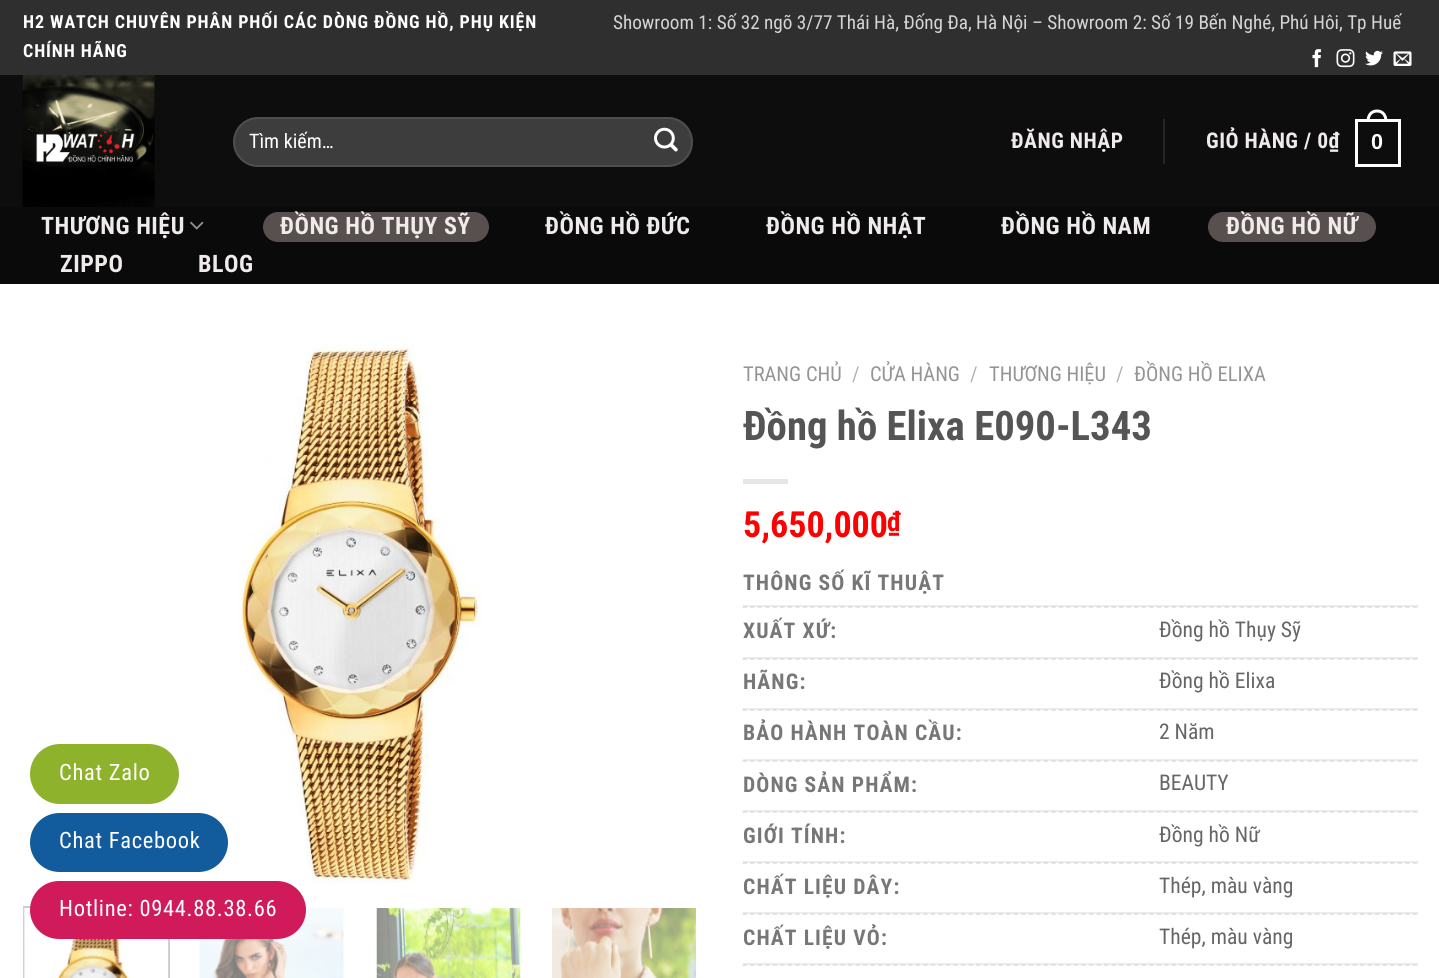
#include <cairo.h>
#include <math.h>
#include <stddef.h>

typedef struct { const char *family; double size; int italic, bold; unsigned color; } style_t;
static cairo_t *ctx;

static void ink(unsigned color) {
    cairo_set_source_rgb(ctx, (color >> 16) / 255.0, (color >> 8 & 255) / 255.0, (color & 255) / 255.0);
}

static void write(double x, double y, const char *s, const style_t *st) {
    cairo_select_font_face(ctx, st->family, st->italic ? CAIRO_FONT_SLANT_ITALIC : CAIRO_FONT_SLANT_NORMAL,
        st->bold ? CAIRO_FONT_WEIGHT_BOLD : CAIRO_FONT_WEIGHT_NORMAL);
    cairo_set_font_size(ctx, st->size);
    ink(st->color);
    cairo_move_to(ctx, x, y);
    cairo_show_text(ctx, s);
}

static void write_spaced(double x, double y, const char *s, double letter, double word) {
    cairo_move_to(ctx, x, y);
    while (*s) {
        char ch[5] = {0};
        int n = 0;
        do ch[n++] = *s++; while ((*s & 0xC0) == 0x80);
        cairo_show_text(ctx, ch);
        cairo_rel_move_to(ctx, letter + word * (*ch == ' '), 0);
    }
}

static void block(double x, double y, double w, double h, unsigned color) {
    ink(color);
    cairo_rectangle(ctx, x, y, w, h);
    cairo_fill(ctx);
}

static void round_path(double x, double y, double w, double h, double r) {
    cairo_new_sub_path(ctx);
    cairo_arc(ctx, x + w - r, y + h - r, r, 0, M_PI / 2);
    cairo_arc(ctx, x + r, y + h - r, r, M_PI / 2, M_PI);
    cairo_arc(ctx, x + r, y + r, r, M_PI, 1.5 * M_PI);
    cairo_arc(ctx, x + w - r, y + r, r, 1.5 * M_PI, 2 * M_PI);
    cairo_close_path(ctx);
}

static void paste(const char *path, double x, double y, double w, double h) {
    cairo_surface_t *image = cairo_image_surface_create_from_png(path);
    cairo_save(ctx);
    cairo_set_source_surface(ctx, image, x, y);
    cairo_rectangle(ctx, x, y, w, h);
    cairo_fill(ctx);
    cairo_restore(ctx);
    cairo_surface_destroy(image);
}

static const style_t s1 = {"Roboto Condensed", 19.2, 0, 0, 0xd5d5d5};
static const style_t s2 = {"Roboto Condensed", 20, 0, 0, 0xffffff};
static const style_t s3 = {"Roboto Condensed", 20.5, 0, 0, 0x949494};
static const style_t s4 = {"Roboto Condensed", 20.5, 0, 0, 0xb2b2b2};
static const style_t s5 = {"Roboto Condensed", 40.75, 0, 1, 0x555555};
static const style_t s6 = {"Roboto Condensed", 36, 0, 1, 0xff0000};
static const style_t s7 = {"Roboto Condensed", 27, 0, 1, 0xff0000};
static const style_t s8 = {"Roboto Condensed", 21.6, 0, 0, 0x666666};

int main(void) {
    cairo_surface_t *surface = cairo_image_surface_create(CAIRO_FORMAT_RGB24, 1439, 978);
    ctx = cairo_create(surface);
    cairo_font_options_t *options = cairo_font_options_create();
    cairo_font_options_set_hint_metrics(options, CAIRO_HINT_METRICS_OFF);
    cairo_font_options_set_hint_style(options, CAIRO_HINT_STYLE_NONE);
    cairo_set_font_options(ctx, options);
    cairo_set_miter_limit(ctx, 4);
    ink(0xffffff);
    cairo_paint(ctx);
    block(0, 0, 1439, 75, 0x2f2f2f);
    cairo_select_font_face(ctx, "Roboto Condensed", CAIRO_FONT_SLANT_NORMAL, CAIRO_FONT_WEIGHT_BOLD);
    cairo_set_font_size(ctx, 18);
    ink(0xffffff);
    write_spaced(23, 28, "H2 WATCH CHUYÊN PHÂN PHỐI CÁC DÒNG ĐỒNG HỒ, PHỤ KIỆN", 0.9, 0);
    write_spaced(23, 57, "CHÍNH HÃNG", 0.9, 0);
    write(613, 29, "Showroom 1: Số 32 ngõ 3/77 Thái Hà, Đống Đa, Hà Nội – Showroom 2: Số 19 Bến Nghé, Phú Hôi, Tp Huế", &s1);
    paste("pic1.png", 1312, 49, 9, 19);
    paste("pic2.png", 1336, 49, 19, 19);
    paste("pic3.png", 1365, 50, 18, 16);
    paste("pic4.png", 1393, 51, 19, 15);
    block(0, 75, 1439, 132, 0x0d0d0d);
    paste("pic5.png", 22, 75, 133, 132);
    ink(0x3d3d3d);
    round_path(233, 117, 460, 50, 25);
    cairo_fill(ctx);
    round_path(234, 118, 458, 48, 24);
    cairo_set_source_rgba(ctx, 1, 1, 1, 0.09);
    cairo_stroke(ctx);
    write(249, 148, "Tìm kiếm…", &s2);
    paste("pic6.png", 654, 127, 24, 25);
    cairo_select_font_face(ctx, "Roboto Condensed", CAIRO_FONT_SLANT_NORMAL, CAIRO_FONT_WEIGHT_BOLD);
    cairo_set_font_size(ctx, 21.6);
    ink(0xefebeb);
    write_spaced(1011, 148, "ĐĂNG NHẬP", 0.5, 0);
    block(1163, 119, 2, 45, 0x252525);
    ink(0xefebeb);
    write_spaced(1206, 148, "GIỎ HÀNG / 0₫", 0.5, 0);
    cairo_rectangle(ctx, 1356.5, 120.5, 43, 45);
    ink(0xffffff);
    cairo_set_line_width(ctx, 3);
    cairo_stroke(ctx);
    cairo_set_fill_rule(ctx, CAIRO_FILL_RULE_EVEN_ODD);
    cairo_new_path(ctx);
    cairo_move_to(ctx, 1377, 109.5);
    cairo_curve_to(ctx, 1384, 109.5, 1387.5, 115, 1387.5, 121.5);
    cairo_line_to(ctx, 1366.5, 121.5);
    cairo_curve_to(ctx, 1366.5, 115, 1370, 109.5, 1377, 109.5);
    cairo_close_path(ctx);
    cairo_move_to(ctx, 1377, 112.5);
    cairo_curve_to(ctx, 1382.5, 112.5, 1384.5, 117, 1384.5, 121.5);
    cairo_line_to(ctx, 1369.5, 121.5);
    cairo_curve_to(ctx, 1369.5, 117, 1371.5, 112.5, 1377, 112.5);
    cairo_close_path(ctx);
    cairo_fill(ctx);
    cairo_select_font_face(ctx, "Liberation Sans", CAIRO_FONT_SLANT_NORMAL, CAIRO_FONT_WEIGHT_BOLD);
    write_spaced(1371, 149, "0", 0.5, 0);
    block(0, 207, 1439, 77, 0x0a0a0a);
    cairo_select_font_face(ctx, "Roboto Condensed", CAIRO_FONT_SLANT_NORMAL, CAIRO_FONT_WEIGHT_BOLD);
    cairo_set_font_size(ctx, 24);
    ink(0xefebeb);
    write_spaced(41, 234, "THƯƠNG HIỆU", 0.5, 0);
    paste("pic7.png", 190, 221, 14, 9);
    ink(0x584f4f);
    round_path(263, 212, 226, 30, 15);
    cairo_fill(ctx);
    ink(0xefebeb);
    write_spaced(280, 234, "ĐỒNG HỒ THỤY SỸ", 0.5, 0);
    write_spaced(545, 234, "ĐỒNG HỒ ĐỨC", 0.5, 0);
    write_spaced(766, 234, "ĐỒNG HỒ NHẬT", 0.5, 0);
    write_spaced(1001, 234, "ĐỒNG HỒ NAM", 0.5, 0);
    ink(0x584f4f);
    round_path(1208, 212, 168, 30, 15);
    cairo_fill(ctx);
    ink(0xefebeb);
    write_spaced(1226, 234, "ĐỒNG HỒ NỮ", 0.5, 0);
    write_spaced(60, 272, "ZIPPO", 0.5, 0);
    write_spaced(198, 272, "BLOG", 0.5, 0);
    paste("pic8.png", 238, 344, 244, 540);
    cairo_rectangle(ctx, 24, 907, 145, 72);
    ink(0xcccccc);
    cairo_set_line_width(ctx, 2);
    cairo_stroke(ctx);
    paste("pic9.png", 23, 908, 146, 70);
    paste("pic10.png", 199, 908, 145, 70);
    paste("pic11.png", 376, 908, 145, 70);
    paste("pic12.png", 552, 908, 144, 70);
    write(743, 381, "TRANG CHỦ", &s3);
    write(852, 381, "/", &s4);
    write(870, 381, "CỬA HÀNG", &s3);
    write(970, 381, "/", &s4);
    write(989, 381, "THƯƠNG HIỆU", &s3);
    write(1116, 381, "/", &s4);
    write(1134, 381, "ĐỒNG HỒ ELIXA", &s3);
    write(743, 440, "Đồng hồ Elixa E090-L343", &s5);
    block(743, 479, 45, 5, 0xe6e6e6);
    write(743, 537, "5,650,000", &s6);
    write(887, 531, "₫", &s7);
    block(743, 605, 675, 2, 0xececec);
    cairo_set_font_size(ctx, 21.6);
    ink(0x777777);
    write_spaced(743, 590, "THÔNG SỐ KĨ THUẬT", 1.1, 0);
    cairo_new_path(ctx);
    cairo_move_to(ctx, 742.5, 607);
    cairo_line_to(ctx, 1417.5, 607);
    ink(0xdddddd);
    cairo_set_line_width(ctx, 1.5);
    cairo_set_dash(ctx, (double[]){4.5, 3.03}, 2, 0);
    cairo_stroke(ctx);
    block(743, 657, 675, 2, 0xececec);
    ink(0x777777);
    write_spaced(743, 638, "XUẤT XỨ:", 1.1, 0);
    write(1159, 637, "Đồng hồ Thụy Sỹ", &s8);
    cairo_new_path(ctx);
    cairo_move_to(ctx, 742.5, 659);
    cairo_line_to(ctx, 1417.5, 659);
    ink(0xdddddd);
    cairo_stroke(ctx);
    block(743, 708, 675, 2, 0xececec);
    cairo_select_font_face(ctx, "Roboto Condensed", CAIRO_FONT_SLANT_NORMAL, CAIRO_FONT_WEIGHT_BOLD);
    ink(0x777777);
    write_spaced(743, 689, "HÃNG:", 1.1, 0);
    write(1159, 688, "Đồng hồ Elixa", &s8);
    cairo_new_path(ctx);
    cairo_move_to(ctx, 742.5, 710);
    cairo_line_to(ctx, 1417.5, 710);
    ink(0xdddddd);
    cairo_stroke(ctx);
    block(743, 759, 675, 2, 0xececec);
    cairo_select_font_face(ctx, "Roboto Condensed", CAIRO_FONT_SLANT_NORMAL, CAIRO_FONT_WEIGHT_BOLD);
    ink(0x777777);
    write_spaced(743, 740, "BẢO HÀNH TOÀN CẦU:", 1.1, 0);
    write(1159, 739, "2 Năm", &s8);
    cairo_new_path(ctx);
    cairo_move_to(ctx, 742.5, 761);
    cairo_line_to(ctx, 1417.5, 761);
    ink(0xdddddd);
    cairo_stroke(ctx);
    block(743, 810, 675, 2, 0xececec);
    cairo_select_font_face(ctx, "Roboto Condensed", CAIRO_FONT_SLANT_NORMAL, CAIRO_FONT_WEIGHT_BOLD);
    ink(0x777777);
    write_spaced(743, 792, "DÒNG SẢN PHẨM:", 1.1, 0);
    write(1159, 790, "BEAUTY", &s8);
    cairo_new_path(ctx);
    cairo_move_to(ctx, 742.5, 812);
    cairo_line_to(ctx, 1417.5, 812);
    ink(0xdddddd);
    cairo_stroke(ctx);
    block(743, 861, 675, 2, 0xececec);
    cairo_select_font_face(ctx, "Roboto Condensed", CAIRO_FONT_SLANT_NORMAL, CAIRO_FONT_WEIGHT_BOLD);
    ink(0x777777);
    write_spaced(743, 843, "GIỚI TÍNH:", 1.1, 0);
    write(1159, 842, "Đồng hồ Nữ", &s8);
    cairo_new_path(ctx);
    cairo_move_to(ctx, 742.5, 863);
    cairo_line_to(ctx, 1417.5, 863);
    ink(0xdddddd);
    cairo_stroke(ctx);
    block(743, 912, 675, 2, 0xececec);
    cairo_select_font_face(ctx, "Roboto Condensed", CAIRO_FONT_SLANT_NORMAL, CAIRO_FONT_WEIGHT_BOLD);
    ink(0x777777);
    write_spaced(743, 894, "CHẤT LIỆU DÂY:", 1.1, 0);
    write(1159, 893, "Thép, màu vàng", &s8);
    cairo_new_path(ctx);
    cairo_move_to(ctx, 742.5, 914);
    cairo_line_to(ctx, 1417.5, 914);
    ink(0xdddddd);
    cairo_stroke(ctx);
    block(743, 963, 675, 2, 0xececec);
    cairo_select_font_face(ctx, "Roboto Condensed", CAIRO_FONT_SLANT_NORMAL, CAIRO_FONT_WEIGHT_BOLD);
    ink(0x777777);
    write_spaced(743, 945, "CHẤT LIỆU VỎ:", 1.1, 0);
    write(1159, 944, "Thép, màu vàng", &s8);
    cairo_new_path(ctx);
    cairo_move_to(ctx, 742.5, 965);
    cairo_line_to(ctx, 1417.5, 965);
    ink(0xdddddd);
    cairo_stroke(ctx);
    ink(0x8eb22b);
    round_path(30, 744, 149, 60, 30);
    cairo_fill(ctx);
    cairo_set_font_size(ctx, 22.5);
    ink(0xffffff);
    write_spaced(59, 780, "Chat Zalo", 0.7, 0);
    ink(0x125c9e);
    round_path(30, 813, 198, 59, 29.5);
    cairo_fill(ctx);
    ink(0xffffff);
    write_spaced(59, 848, "Chat Facebook", 0.7, 0);
    ink(0xd11a59);
    round_path(30, 881, 276, 58, 29);
    cairo_fill(ctx);
    ink(0xffffff);
    write_spaced(59, 916, "Hotline: 0944.88.38.66", 0.7, 0);
    cairo_surface_write_to_png(surface, "screenshot.png");
    cairo_font_options_destroy(options);
    cairo_destroy(ctx);
    cairo_surface_destroy(surface);
    return 0;
}
